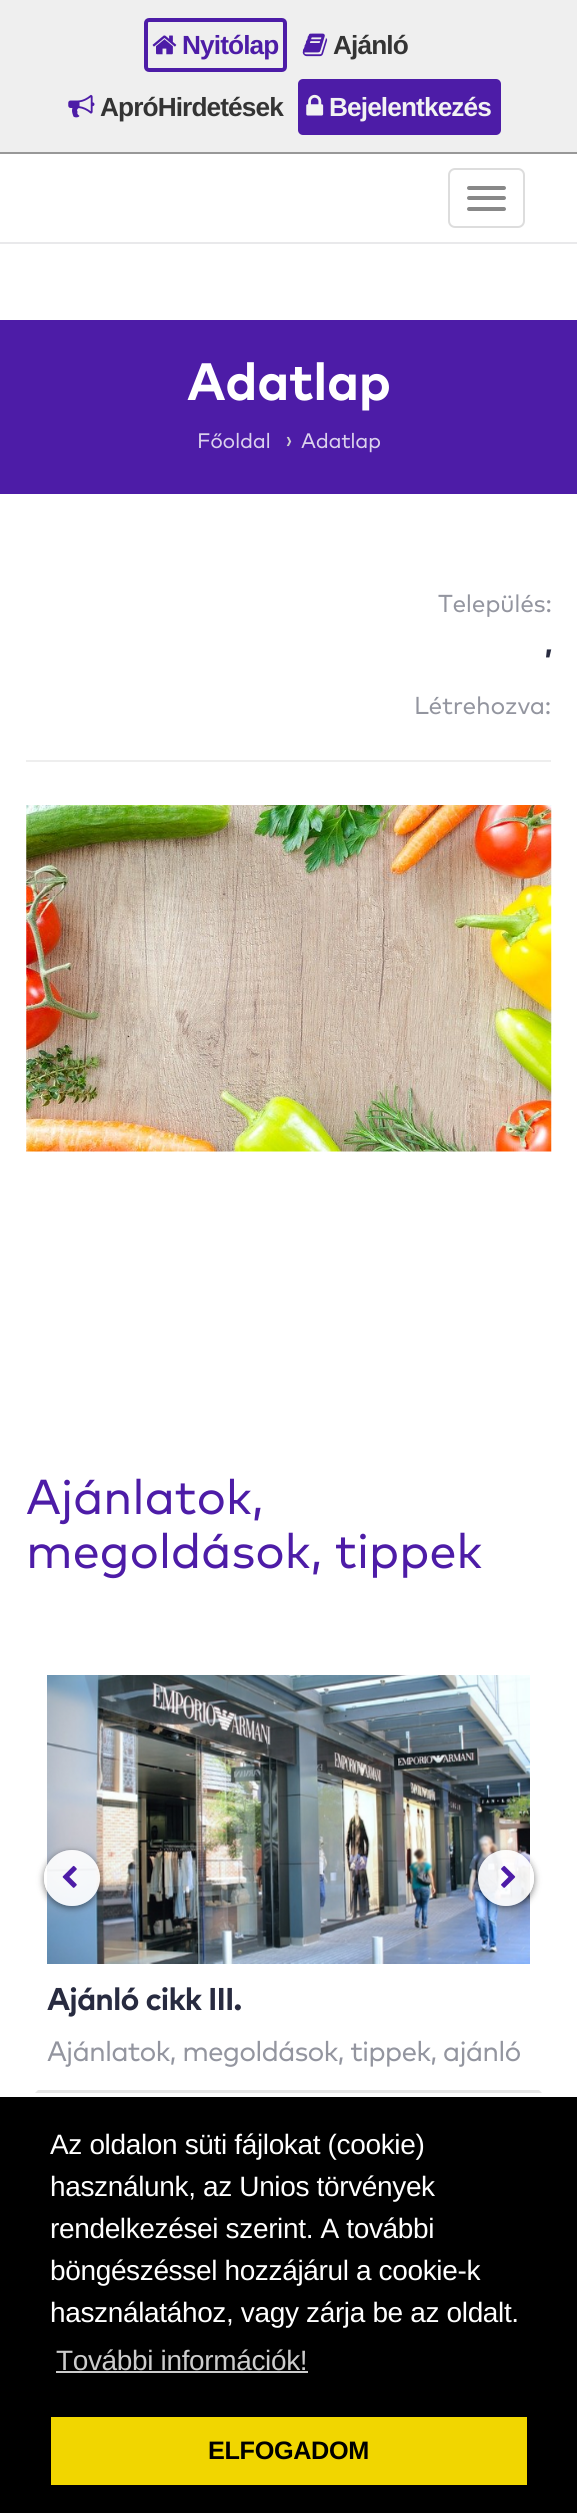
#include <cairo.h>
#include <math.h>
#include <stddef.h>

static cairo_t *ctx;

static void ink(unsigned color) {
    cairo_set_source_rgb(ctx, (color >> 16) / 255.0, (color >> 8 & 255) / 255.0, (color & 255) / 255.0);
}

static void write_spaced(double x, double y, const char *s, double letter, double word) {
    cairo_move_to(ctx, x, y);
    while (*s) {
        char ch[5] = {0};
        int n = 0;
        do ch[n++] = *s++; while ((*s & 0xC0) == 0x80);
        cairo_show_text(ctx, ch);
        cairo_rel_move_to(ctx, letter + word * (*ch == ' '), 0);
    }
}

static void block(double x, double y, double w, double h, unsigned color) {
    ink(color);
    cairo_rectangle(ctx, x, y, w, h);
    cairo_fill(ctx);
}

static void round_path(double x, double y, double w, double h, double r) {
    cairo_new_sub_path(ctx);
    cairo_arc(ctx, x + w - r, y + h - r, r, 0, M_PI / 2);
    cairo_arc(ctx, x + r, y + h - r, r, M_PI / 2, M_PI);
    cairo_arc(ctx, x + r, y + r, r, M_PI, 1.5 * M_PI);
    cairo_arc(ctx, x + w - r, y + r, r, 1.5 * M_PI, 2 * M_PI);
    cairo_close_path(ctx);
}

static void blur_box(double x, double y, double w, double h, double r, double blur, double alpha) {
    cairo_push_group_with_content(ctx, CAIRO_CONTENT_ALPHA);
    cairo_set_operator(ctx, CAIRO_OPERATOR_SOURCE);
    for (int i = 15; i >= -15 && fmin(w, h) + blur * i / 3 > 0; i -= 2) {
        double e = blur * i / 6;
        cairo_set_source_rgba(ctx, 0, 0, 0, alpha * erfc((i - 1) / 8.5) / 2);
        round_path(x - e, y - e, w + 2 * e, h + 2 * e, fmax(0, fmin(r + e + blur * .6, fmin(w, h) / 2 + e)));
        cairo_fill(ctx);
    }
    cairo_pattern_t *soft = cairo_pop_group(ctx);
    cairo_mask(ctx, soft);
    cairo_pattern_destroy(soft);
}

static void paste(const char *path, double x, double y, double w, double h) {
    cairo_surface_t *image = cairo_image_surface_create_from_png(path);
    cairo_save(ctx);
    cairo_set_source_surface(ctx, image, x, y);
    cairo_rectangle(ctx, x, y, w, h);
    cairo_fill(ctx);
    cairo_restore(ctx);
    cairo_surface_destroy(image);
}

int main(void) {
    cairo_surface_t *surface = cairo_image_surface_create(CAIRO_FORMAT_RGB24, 577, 2513);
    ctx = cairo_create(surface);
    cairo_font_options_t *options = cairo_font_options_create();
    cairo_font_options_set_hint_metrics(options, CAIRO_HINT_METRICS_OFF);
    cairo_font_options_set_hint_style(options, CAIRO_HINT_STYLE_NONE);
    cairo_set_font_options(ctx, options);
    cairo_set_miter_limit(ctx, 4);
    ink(0xffffff);
    cairo_paint(ctx);
    block(0, 0, 577, 152, 0xefefef);
    block(0, 152, 577, 2, 0x989898);
    round_path(146, 20, 139, 50, 3);
    ink(0x4d1ca7);
    cairo_set_line_width(ctx, 4);
    cairo_stroke(ctx);
    paste("pic1.png", 152, 35, 25, 20);
    cairo_select_font_face(ctx, "Liberation Sans", CAIRO_FONT_SLANT_NORMAL, CAIRO_FONT_WEIGHT_BOLD);
    cairo_set_font_size(ctx, 26.25);
    write_spaced(182, 54, "Nyitólap", -0.9, 0);
    paste("pic2.png", 302, 33, 26, 24);
    ink(0x343434);
    write_spaced(333, 54, "Ajánló", -0.9, 0);
    paste("pic3.png", 68, 94, 27, 24);
    write_spaced(100, 116, "ApróHirdetések", -0.9, 0);
    ink(0x4d1ca7);
    round_path(298, 79, 203, 56, 5);
    cairo_fill(ctx);
    paste("pic4.png", 306, 94, 18, 22);
    ink(0xf2f2f2);
    write_spaced(329, 116, "Bejelentkezés", -0.9, 0);
    block(0, 242, 577, 2, 0xe9e9eb);
    round_path(449, 169, 75, 58, 6);
    ink(0xdddddd);
    cairo_set_line_width(ctx, 2);
    cairo_stroke(ctx);
    ink(0x888888);
    round_path(467, 186, 39, 4, 2);
    cairo_fill(ctx);
    round_path(467, 196, 39, 4, 2);
    cairo_fill(ctx);
    round_path(467, 207, 39, 4, 2);
    cairo_fill(ctx);
    block(0, 320, 577, 174, 0x4d1ca7);
    cairo_select_font_face(ctx, "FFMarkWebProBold", CAIRO_FONT_SLANT_NORMAL, CAIRO_FONT_WEIGHT_NORMAL);
    cairo_set_font_size(ctx, 52.5);
    ink(0xffffff);
    write_spaced(187, 400, "Adatlap", -0.35, 0);
    cairo_select_font_face(ctx, "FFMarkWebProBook", CAIRO_FONT_SLANT_NORMAL, CAIRO_FONT_WEIGHT_NORMAL);
    cairo_set_font_size(ctx, 21);
    ink(0xdbd2ed);
    write_spaced(197, 448, "Főoldal", -0.35, 0);
    cairo_set_font_size(ctx, 24.5);
    ink(0xcccccc);
    write_spaced(285, 448, "›", -0.35, 0);
    cairo_set_font_size(ctx, 21);
    ink(0xdbd2ed);
    write_spaced(301, 448, "Adatlap", -0.35, 0);
    cairo_set_font_size(ctx, 24.5);
    ink(0x93959f);
    write_spaced(438, 612, "Település:", -0.35, 0);
    cairo_select_font_face(ctx, "FFMarkWebProBold", CAIRO_FONT_SLANT_NORMAL, CAIRO_FONT_WEIGHT_BOLD);
    ink(0x282b40);
    write_spaced(545, 654, ",", -0.35, 0);
    cairo_select_font_face(ctx, "FFMarkWebProBook", CAIRO_FONT_SLANT_NORMAL, CAIRO_FONT_WEIGHT_NORMAL);
    ink(0x93959f);
    write_spaced(414, 714, "Létrehozva:", -0.35, 0);
    block(26, 760, 525, 2, 0xeeeeee);
    paste("pic5.png", 26, 805, 526, 347);
    cairo_set_font_size(ctx, 49);
    ink(0x4d1ca7);
    write_spaced(26, 1514, "Ajánlatok,", -0.35, 0);
    write_spaced(26, 1568, "megoldások, tippek", -0.35, 0);
    paste("pic8.png", 47, 1675, 483, 289);
    cairo_save(ctx);
    cairo_set_fill_rule(ctx, CAIRO_FILL_RULE_EVEN_ODD);
    cairo_new_path(ctx);
    cairo_move_to(ctx, 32, 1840);
    cairo_line_to(ctx, 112, 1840);
    cairo_line_to(ctx, 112, 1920);
    cairo_line_to(ctx, 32, 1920);
    cairo_close_path(ctx);
    cairo_move_to(ctx, 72, 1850);
    cairo_curve_to(ctx, 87.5, 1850, 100, 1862.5, 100, 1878);
    cairo_curve_to(ctx, 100, 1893.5, 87.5, 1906, 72, 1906);
    cairo_curve_to(ctx, 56.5, 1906, 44, 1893.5, 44, 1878);
    cairo_curve_to(ctx, 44, 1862.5, 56.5, 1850, 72, 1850);
    cairo_close_path(ctx);
    cairo_clip(ctx);
    ink(0x000000);
    blur_box(44, 1852, 56, 56, 28, 3.5, 0.5);
    cairo_restore(ctx);
    cairo_set_source_rgba(ctx, 1, 1, 1, 0.9);
    cairo_arc(ctx, 72, 1878, 28, 0, 2 * M_PI);
    cairo_fill(ctx);
    paste("pic6.png", 62, 1865, 15, 23);
    cairo_save(ctx);
    cairo_set_fill_rule(ctx, CAIRO_FILL_RULE_EVEN_ODD);
    cairo_new_path(ctx);
    cairo_move_to(ctx, 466, 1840);
    cairo_line_to(ctx, 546, 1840);
    cairo_line_to(ctx, 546, 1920);
    cairo_line_to(ctx, 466, 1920);
    cairo_close_path(ctx);
    cairo_move_to(ctx, 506, 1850);
    cairo_curve_to(ctx, 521.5, 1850, 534, 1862.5, 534, 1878);
    cairo_curve_to(ctx, 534, 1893.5, 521.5, 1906, 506, 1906);
    cairo_curve_to(ctx, 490.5, 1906, 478, 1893.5, 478, 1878);
    cairo_curve_to(ctx, 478, 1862.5, 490.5, 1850, 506, 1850);
    cairo_close_path(ctx);
    cairo_clip(ctx);
    ink(0x000000);
    blur_box(478, 1852, 56, 56, 28, 3.5, 0.5);
    cairo_restore(ctx);
    cairo_arc(ctx, 506, 1878, 28, 0, 2 * M_PI);
    cairo_fill(ctx);
    paste("pic7.png", 501, 1865, 15, 23);
    ink(0xe7e7e7);
    cairo_new_path(ctx);
    cairo_move_to(ctx, 542, 2093);
    cairo_line_to(ctx, 35, 2093);
    cairo_line_to(ctx, 38, 2090);
    cairo_line_to(ctx, 539, 2090);
    cairo_close_path(ctx);
    cairo_fill(ctx);
    cairo_select_font_face(ctx, "FFMarkWebProBold", CAIRO_FONT_SLANT_NORMAL, CAIRO_FONT_WEIGHT_NORMAL);
    cairo_set_font_size(ctx, 31.5);
    ink(0x282b40);
    write_spaced(47, 2010, "Ajánló cikk III.", -0.9, 0);
    cairo_select_font_face(ctx, "FFMarkWebProBook", CAIRO_FONT_SLANT_NORMAL, CAIRO_FONT_WEIGHT_NORMAL);
    cairo_set_font_size(ctx, 28);
    ink(0x93959f);
    write_spaced(47, 2061, "Ajánlatok, megoldások, tippek, ajánló", -0.9, 0);
    block(0, 2097, 577, 416, 0x000000);
    cairo_select_font_face(ctx, "Liberation Sans", CAIRO_FONT_SLANT_NORMAL, CAIRO_FONT_WEIGHT_NORMAL);
    ink(0xffffff);
    write_spaced(50, 2154, "Az oldalon süti fájlokat (cookie)", -0.35, 0);
    write_spaced(50, 2196, "használunk, az Unios törvények", -0.35, 0);
    write_spaced(50, 2238, "rendelkezései szerint. A további", -0.35, 0);
    write_spaced(50, 2280, "böngészéssel hozzájárul a cookie-k", -0.35, 0);
    write_spaced(50, 2322, "használatához, vagy zárja be az oldalt.", -0.35, 0);
    ink(0xcccccc);
    write_spaced(56, 2370, "További információk!", -0.35, 0);
    block(56, 2371, 252, 2, 0xcccccc);
    block(51, 2417, 476, 68, 0xf1d600);
    cairo_select_font_face(ctx, "Liberation Sans", CAIRO_FONT_SLANT_NORMAL, CAIRO_FONT_WEIGHT_BOLD);
    cairo_set_font_size(ctx, 25.25);
    ink(0x000000);
    write_spaced(208, 2459, "ELFOGADOM", -0.35, 0);
    cairo_surface_write_to_png(surface, "screenshot.png");
    cairo_font_options_destroy(options);
    cairo_destroy(ctx);
    cairo_surface_destroy(surface);
    return 0;
}
